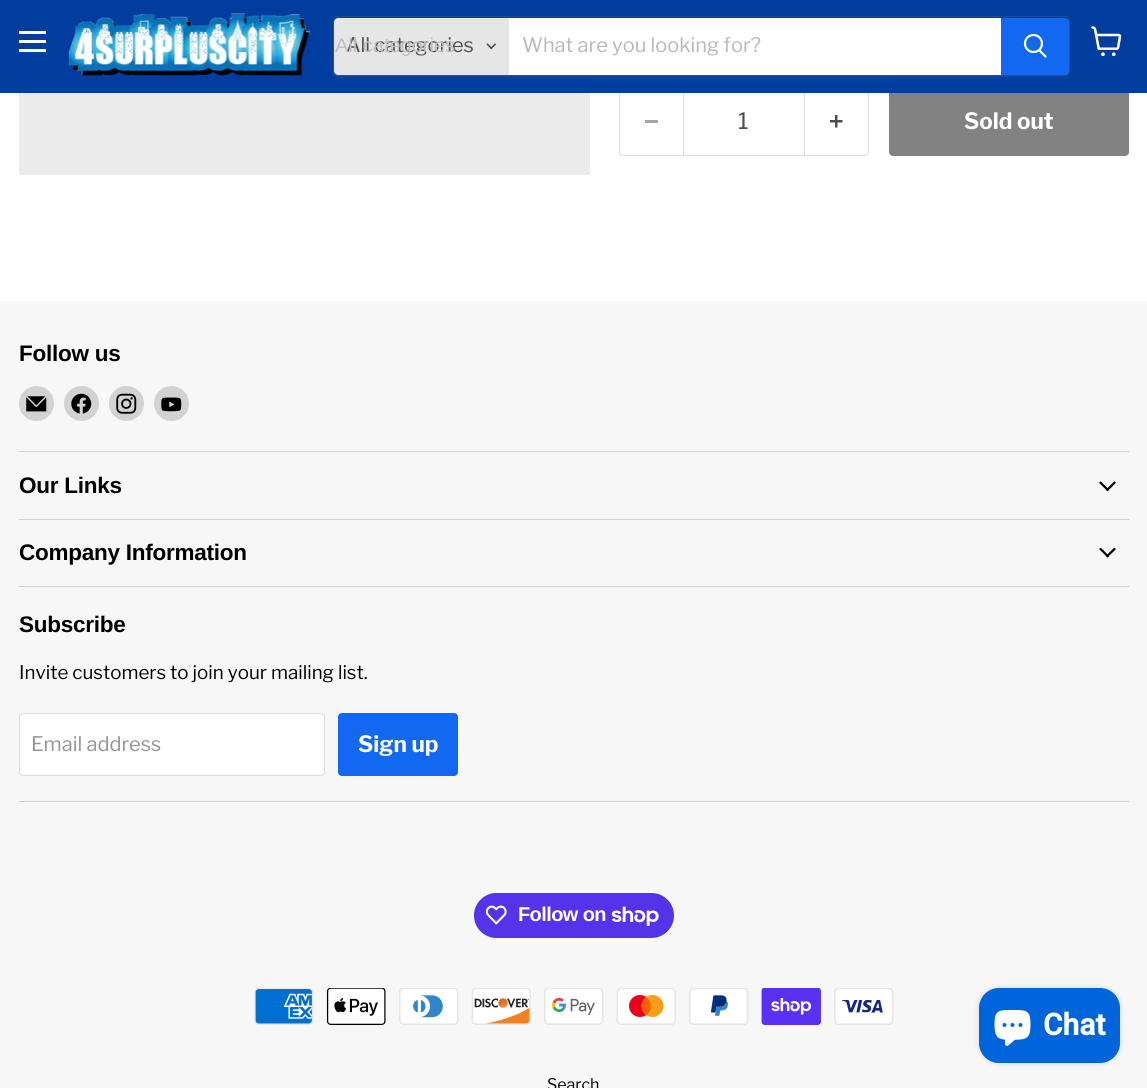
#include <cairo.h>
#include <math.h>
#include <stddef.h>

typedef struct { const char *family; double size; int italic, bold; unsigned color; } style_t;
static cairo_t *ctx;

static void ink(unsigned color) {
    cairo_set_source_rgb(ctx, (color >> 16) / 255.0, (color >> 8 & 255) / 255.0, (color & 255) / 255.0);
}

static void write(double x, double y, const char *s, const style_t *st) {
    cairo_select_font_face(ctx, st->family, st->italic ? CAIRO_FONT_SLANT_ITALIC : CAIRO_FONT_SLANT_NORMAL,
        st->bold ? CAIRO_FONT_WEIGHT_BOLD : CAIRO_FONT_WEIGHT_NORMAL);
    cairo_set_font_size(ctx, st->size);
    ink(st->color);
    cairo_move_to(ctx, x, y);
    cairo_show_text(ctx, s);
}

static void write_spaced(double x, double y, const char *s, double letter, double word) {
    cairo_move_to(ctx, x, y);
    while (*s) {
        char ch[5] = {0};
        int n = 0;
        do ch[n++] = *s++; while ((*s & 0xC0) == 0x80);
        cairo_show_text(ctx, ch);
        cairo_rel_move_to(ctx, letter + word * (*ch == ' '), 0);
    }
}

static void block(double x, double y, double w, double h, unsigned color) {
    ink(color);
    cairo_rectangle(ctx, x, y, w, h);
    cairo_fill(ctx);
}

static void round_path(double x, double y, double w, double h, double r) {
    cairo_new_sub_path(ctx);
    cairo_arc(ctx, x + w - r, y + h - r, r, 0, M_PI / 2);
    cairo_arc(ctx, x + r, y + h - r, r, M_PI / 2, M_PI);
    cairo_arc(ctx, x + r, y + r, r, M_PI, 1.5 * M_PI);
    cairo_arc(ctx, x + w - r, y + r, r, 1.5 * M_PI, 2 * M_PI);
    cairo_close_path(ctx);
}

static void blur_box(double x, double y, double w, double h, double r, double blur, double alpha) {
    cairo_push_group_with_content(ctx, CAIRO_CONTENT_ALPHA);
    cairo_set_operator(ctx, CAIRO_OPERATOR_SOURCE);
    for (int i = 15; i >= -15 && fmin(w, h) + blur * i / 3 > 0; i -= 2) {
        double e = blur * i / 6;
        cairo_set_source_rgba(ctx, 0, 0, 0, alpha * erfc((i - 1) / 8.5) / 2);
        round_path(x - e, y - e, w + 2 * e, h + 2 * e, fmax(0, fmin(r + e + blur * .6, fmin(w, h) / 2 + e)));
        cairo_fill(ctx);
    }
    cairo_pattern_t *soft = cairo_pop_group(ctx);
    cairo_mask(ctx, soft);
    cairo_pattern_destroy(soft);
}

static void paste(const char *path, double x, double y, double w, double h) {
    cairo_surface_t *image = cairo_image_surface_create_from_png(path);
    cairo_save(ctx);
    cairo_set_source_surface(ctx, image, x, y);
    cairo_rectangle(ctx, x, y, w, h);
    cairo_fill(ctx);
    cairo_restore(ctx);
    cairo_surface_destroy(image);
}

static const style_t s1 = {"Libre Franklin", 20, 0, 0, 0x4d4d4d};
static const style_t s2 = {"Liberation Sans", 20, 0, 0, 0xbfbfbf};
static const style_t s3 = {"Libre Franklin", 20, 0, 0, 0xb8b8b8};
static const style_t s4 = {"Libre Franklin", 22.5, 0, 0, 0x4d4d4d};
static const style_t s5 = {"Libre Franklin", 22.5, 0, 1, 0xffffff};
static const style_t s6 = {"Libre Franklin", 18.75, 0, 0, 0x000000};
static const style_t s7 = {"Libre Franklin", 20, 0, 0, 0x949494};
static const style_t s8 = {"Libre Franklin", 16, 0, 0, 0x000000};
static const style_t s9 = {"Roboto", 30, 0, 1, 0xffffff};

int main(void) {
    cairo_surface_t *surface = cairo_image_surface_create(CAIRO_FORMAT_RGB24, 1147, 1088);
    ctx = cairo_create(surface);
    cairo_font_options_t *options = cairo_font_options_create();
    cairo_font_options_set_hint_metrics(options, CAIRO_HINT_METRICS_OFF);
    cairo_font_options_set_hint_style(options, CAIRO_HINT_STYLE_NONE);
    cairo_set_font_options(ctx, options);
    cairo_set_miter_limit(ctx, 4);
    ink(0xffffff);
    cairo_paint(ctx);
    ink(0xdddddd);
    cairo_set_fill_rule(ctx, CAIRO_FILL_RULE_EVEN_ODD);
    cairo_new_path(ctx);
    cairo_move_to(ctx, 622, 88);
    cairo_line_to(ctx, 682, 88);
    cairo_line_to(ctx, 682, 156);
    cairo_line_to(ctx, 622, 156);
    cairo_curve_to(ctx, 620, 156, 619, 155, 619, 152);
    cairo_line_to(ctx, 619, 91);
    cairo_curve_to(ctx, 619, 89, 620, 88, 622, 88);
    cairo_close_path(ctx);
    cairo_move_to(ctx, 622, 89);
    cairo_line_to(ctx, 682, 89);
    cairo_line_to(ctx, 682, 155);
    cairo_line_to(ctx, 622, 155);
    cairo_curve_to(ctx, 621, 155, 620, 154, 620, 152);
    cairo_line_to(ctx, 620, 91);
    cairo_curve_to(ctx, 620, 90, 621, 89, 622, 89);
    cairo_close_path(ctx);
    cairo_fill(ctx);
    cairo_rectangle(ctx, 683.5, 88.5, 121, 67);
    cairo_set_line_width(ctx, 1);
    cairo_stroke(ctx);
    cairo_new_path(ctx);
    cairo_move_to(ctx, 805, 88);
    cairo_line_to(ctx, 865, 88);
    cairo_curve_to(ctx, 867, 88, 869, 89, 869, 91);
    cairo_line_to(ctx, 869, 152);
    cairo_curve_to(ctx, 869, 155, 867, 156, 865, 156);
    cairo_line_to(ctx, 805, 156);
    cairo_close_path(ctx);
    cairo_move_to(ctx, 805, 89);
    cairo_line_to(ctx, 865, 89);
    cairo_curve_to(ctx, 866, 89, 868, 90, 868, 91);
    cairo_line_to(ctx, 868, 152);
    cairo_curve_to(ctx, 868, 154, 866, 155, 865, 155);
    cairo_line_to(ctx, 805, 155);
    cairo_close_path(ctx);
    cairo_fill(ctx);
    ink(0x828282);
    round_path(889.5, 88.5, 239, 67, 3.5);
    cairo_fill_preserve(ctx);
    cairo_stroke(ctx);
    block(0, 0, 1147, 93, 0x003d9f);
    block(19, 31, 27, 3, 0xffffff);
    block(19, 40, 27, 3, 0xffffff);
    block(19, 49, 27, 3, 0xffffff);
    paste("pic1.png", 68, 13, 244, 63);
    ink(0x808080);
    blur_box(333, 19, 737, 60, 5, 2, 0.11);
    round_path(333.5, 16.5, 736, 59, 4.5);
    cairo_set_source_rgba(ctx, 0.502, 0.502, 0.502, 0.2);
    cairo_stroke(ctx);
    ink(0xe6e6e6);
    cairo_new_path(ctx);
    cairo_move_to(ctx, 338, 18);
    cairo_line_to(ctx, 509, 18);
    cairo_line_to(ctx, 509, 75);
    cairo_line_to(ctx, 338, 75);
    cairo_curve_to(ctx, 336, 75, 334, 73, 334, 71);
    cairo_line_to(ctx, 334, 22);
    cairo_curve_to(ctx, 334, 20, 336, 18, 338, 18);
    cairo_close_path(ctx);
    cairo_fill(ctx);
    write(346, 52, "All categories", &s1);
    write(335, 52, "All categories", &s2);
    paste("pic2.png", 486, 43, 10, 7);
    block(509, 18, 492, 57, 0xffffff);
    write(522, 52, "What are you looking for?", &s3);
    ink(0x1268f1);
    cairo_new_path(ctx);
    cairo_move_to(ctx, 1001.5, 18.5);
    cairo_line_to(ctx, 1065, 18.5);
    cairo_curve_to(ctx, 1067, 18.5, 1068.5, 20, 1068.5, 22);
    cairo_line_to(ctx, 1068.5, 71);
    cairo_curve_to(ctx, 1068.5, 73, 1067, 74.5, 1065, 74.5);
    cairo_line_to(ctx, 1001.5, 74.5);
    cairo_close_path(ctx);
    cairo_fill_preserve(ctx);
    cairo_stroke(ctx);
    cairo_new_path(ctx);
    cairo_move_to(ctx, 1045.5, 56.5);
    cairo_line_to(ctx, 1039.5, 50.5);
    ink(0xffffff);
    cairo_set_line_width(ctx, 2.2);
    cairo_set_line_cap(ctx, CAIRO_LINE_CAP_ROUND);
    cairo_stroke(ctx);
    cairo_arc(ctx, 1033.5, 43.5, 8.5, 0, 2 * M_PI);
    cairo_set_line_cap(ctx, CAIRO_LINE_CAP_BUTT);
    cairo_stroke(ctx);
    paste("pic3.png", 1091, 26, 31, 30);
    block(19, 93, 571, 82, 0xebebeb);
    block(645, 120, 13, 3, 0xa6a6a6);
    write(738, 129, "1", &s4);
    paste("pic4.png", 830, 115, 13, 13);
    write(964, 129, "Sold out", &s5);
    block(0, 301, 1147, 787, 0xf7f7f7);
    block(19, 451, 1110, 1, 0xd2d2d2);
    cairo_select_font_face(ctx, "Arimo", CAIRO_FONT_SLANT_NORMAL, CAIRO_FONT_WEIGHT_BOLD);
    ink(0x000000);
    write_spaced(19, 361, "Follow us", -0.25, 0);
    ink(0xd2d2d2);
    cairo_new_path(ctx);
    cairo_arc(ctx, 36.5, 403.5, 17.5, 0, 2 * M_PI);
    cairo_fill(ctx);
    paste("pic5.png", 26, 396, 21, 16);
    cairo_arc(ctx, 81.5, 403.5, 17.5, 0, 2 * M_PI);
    cairo_fill(ctx);
    paste("pic6.png", 71, 393, 21, 21);
    cairo_arc(ctx, 126.5, 403.5, 17.5, 0, 2 * M_PI);
    cairo_fill(ctx);
    paste("pic7.png", 116, 393, 21, 21);
    cairo_arc(ctx, 171.5, 403.5, 17.5, 0, 2 * M_PI);
    cairo_fill(ctx);
    paste("pic8.png", 161, 397, 21, 15);
    block(19, 519, 1110, 1, 0xd2d2d2);
    ink(0x000000);
    write_spaced(19, 493, "Our Links", -0.25, 0);
    paste("pic9.png", 1099, 481, 17, 10);
    block(19, 586, 1110, 1, 0xd2d2d2);
    ink(0x000000);
    write_spaced(19, 560, "Company Information", -0.25, 0);
    paste("pic10.png", 1099, 548, 17, 10);
    block(19, 801, 1110, 1, 0xd2d2d2);
    ink(0x000000);
    write_spaced(19, 632, "Subscribe", -0.25, 0);
    write(19, 679, "Invite customers to join your mailing list.", &s6);
    ink(0xffffff);
    round_path(19.5, 713.5, 305, 62, 3.5);
    cairo_fill_preserve(ctx);
    ink(0xdddddd);
    cairo_set_line_width(ctx, 1);
    cairo_stroke(ctx);
    write(31, 751, "Email address", &s7);
    ink(0x1268f1);
    round_path(338.5, 713.5, 119, 62, 3.5);
    cairo_fill_preserve(ctx);
    cairo_stroke(ctx);
    write(358, 752, "Sign up", &s5);
    ink(0x5433eb);
    round_path(474, 893, 200, 45, 22.5);
    cairo_fill(ctx);
    paste("pic11.png", 485, 905, 22, 20);
    cairo_select_font_face(ctx, "Liberation Sans", CAIRO_FONT_SLANT_NORMAL, CAIRO_FONT_WEIGHT_BOLD);
    cairo_set_font_size(ctx, 20);
    ink(0xffffff);
    write_spaced(518, 921, "Follow on", -0.6, 0);
    paste("pic12.png", 611, 906, 48, 20);
    paste("pic13.png", 254, 988, 60, 37);
    paste("pic14.png", 326, 988, 60, 37);
    paste("pic15.png", 399, 988, 60, 37);
    paste("pic16.png", 471, 988, 60, 37);
    paste("pic17.png", 544, 988, 60, 37);
    paste("pic18.png", 616, 988, 60, 37);
    paste("pic19.png", 689, 988, 60, 37);
    paste("pic20.png", 761, 988, 60, 37);
    paste("pic21.png", 834, 988, 60, 37);
    write(547, 1090, "Search", &s8);
    ink(0x000000);
    blur_box(979, 988, 141, 75, 20, 3, 0.15);
    ink(0x0064da);
    round_path(979, 988, 141, 75, 20);
    cairo_fill(ctx);
    paste("pic22.png", 994, 1010, 37, 36);
    write(1043, 1035, "Chat", &s9);
    cairo_surface_write_to_png(surface, "screenshot.png");
    cairo_font_options_destroy(options);
    cairo_destroy(ctx);
    cairo_surface_destroy(surface);
    return 0;
}
